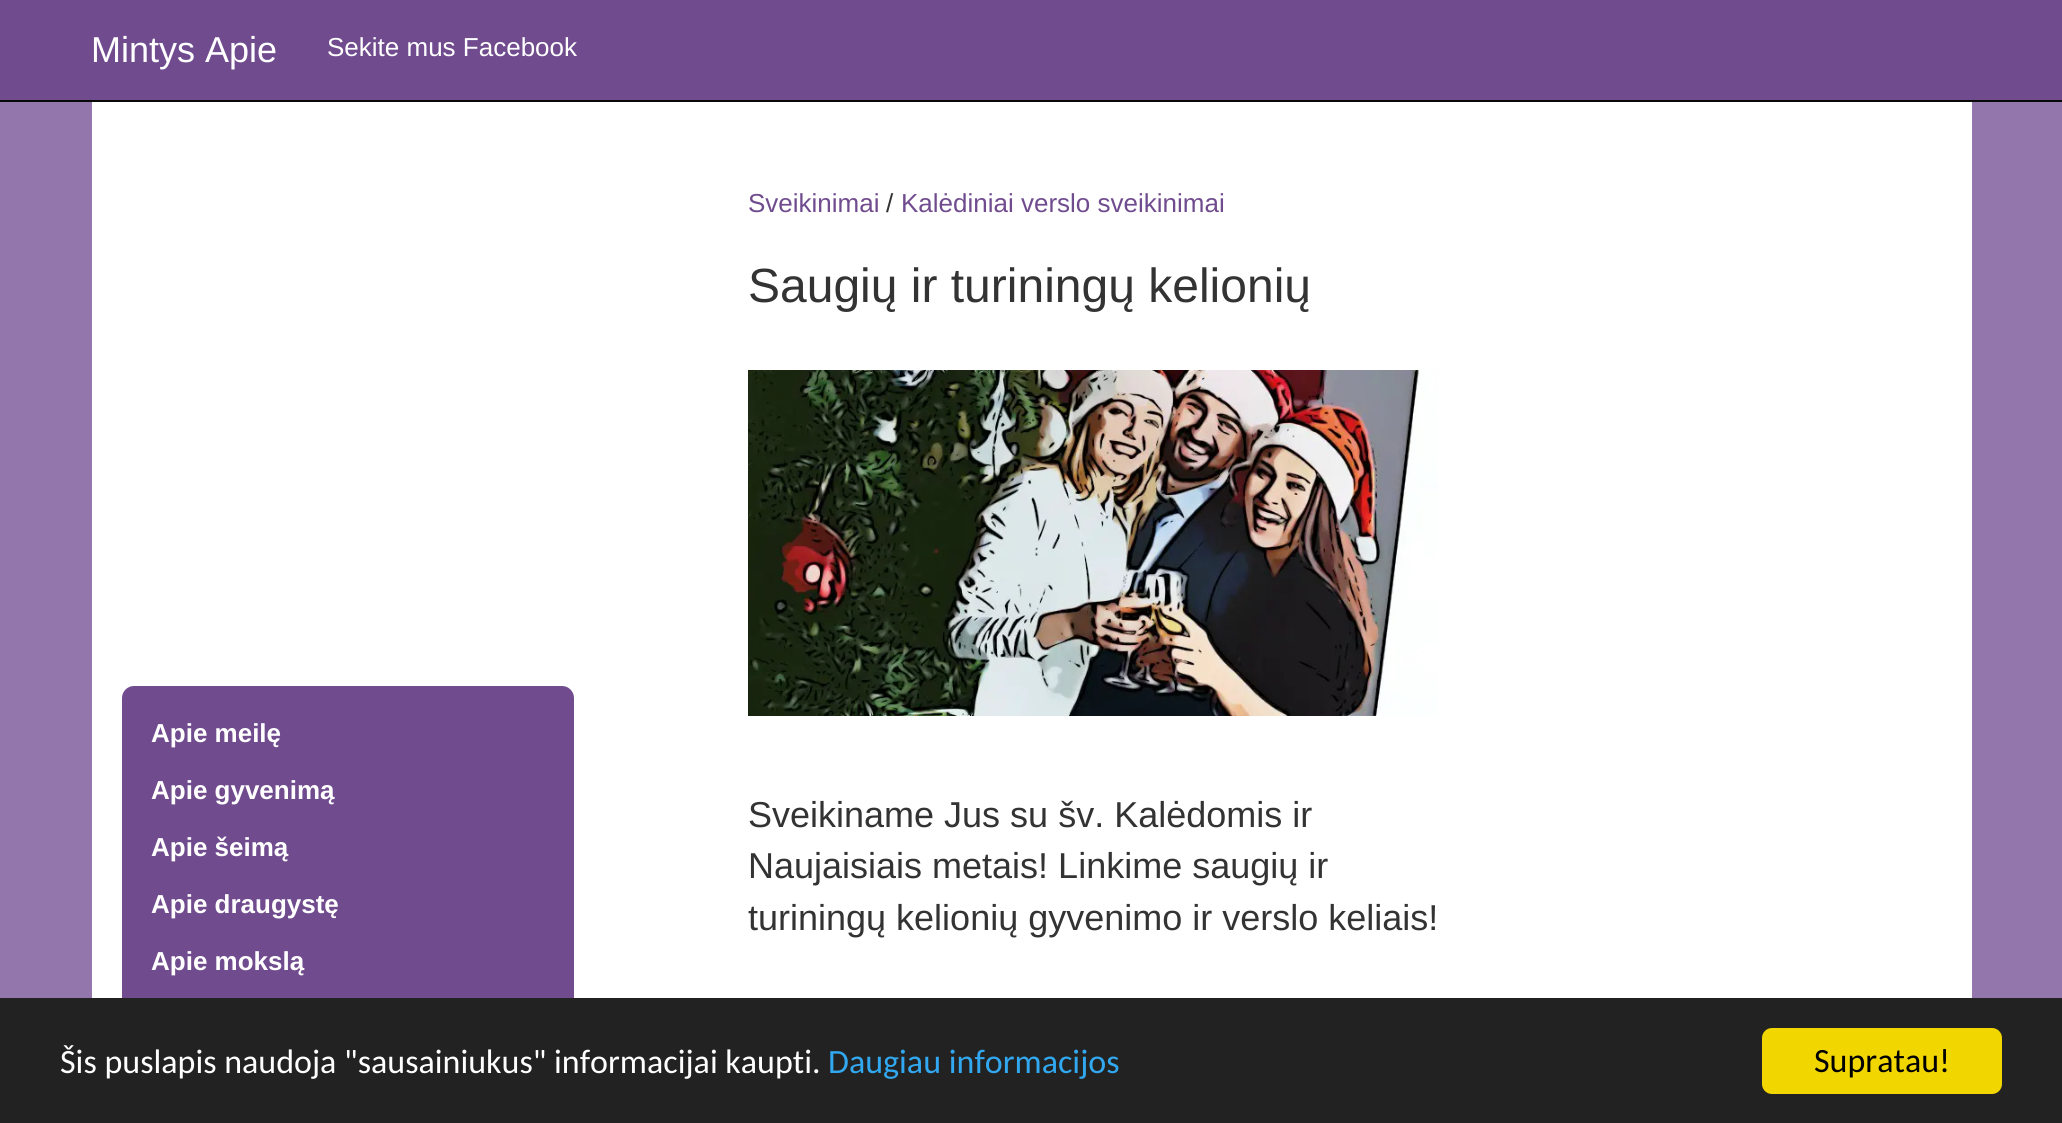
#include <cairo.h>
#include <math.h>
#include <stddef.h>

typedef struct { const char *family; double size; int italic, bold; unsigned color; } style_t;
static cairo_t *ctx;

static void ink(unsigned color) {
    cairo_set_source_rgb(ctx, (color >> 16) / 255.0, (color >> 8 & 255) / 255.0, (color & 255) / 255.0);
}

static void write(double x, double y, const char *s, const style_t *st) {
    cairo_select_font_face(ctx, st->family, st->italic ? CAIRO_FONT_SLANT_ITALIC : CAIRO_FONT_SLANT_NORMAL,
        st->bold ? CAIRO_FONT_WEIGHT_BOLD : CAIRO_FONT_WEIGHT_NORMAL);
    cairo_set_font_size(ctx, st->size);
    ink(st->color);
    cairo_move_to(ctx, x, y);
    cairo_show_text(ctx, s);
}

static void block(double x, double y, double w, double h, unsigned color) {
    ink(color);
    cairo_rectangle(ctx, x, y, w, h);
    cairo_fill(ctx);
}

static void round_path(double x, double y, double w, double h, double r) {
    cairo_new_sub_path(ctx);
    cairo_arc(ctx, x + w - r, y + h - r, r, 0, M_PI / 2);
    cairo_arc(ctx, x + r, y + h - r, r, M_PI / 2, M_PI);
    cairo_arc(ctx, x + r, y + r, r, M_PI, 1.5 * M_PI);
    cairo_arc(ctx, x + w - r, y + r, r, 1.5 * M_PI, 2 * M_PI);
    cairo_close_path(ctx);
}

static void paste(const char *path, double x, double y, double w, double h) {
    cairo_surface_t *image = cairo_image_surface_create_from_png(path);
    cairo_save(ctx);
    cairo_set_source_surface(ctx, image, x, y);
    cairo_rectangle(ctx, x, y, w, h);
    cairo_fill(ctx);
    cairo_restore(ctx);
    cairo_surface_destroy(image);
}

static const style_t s1 = {"Liberation Sans", 36, 0, 0, 0xffffff};
static const style_t s2 = {"Liberation Sans", 26, 0, 0, 0xffffff};
static const style_t s3 = {"Liberation Sans", 26, 0, 1, 0xffffff};
static const style_t s4 = {"Liberation Sans", 26, 0, 0, 0x704c8f};
static const style_t s5 = {"Liberation Sans", 26, 0, 0, 0x333333};
static const style_t s6 = {"Liberation Sans", 48, 0, 0, 0x333333};
static const style_t s7 = {"Liberation Sans", 36, 0, 0, 0x333333};
static const style_t s8 = {"Carlito", 34, 0, 0, 0xffffff};
static const style_t s9 = {"Carlito", 34, 0, 0, 0x31a8f0};
static const style_t s10 = {"Carlito", 34, 0, 0, 0x000000};

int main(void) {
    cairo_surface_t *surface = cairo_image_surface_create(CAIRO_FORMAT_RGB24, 2062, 1123);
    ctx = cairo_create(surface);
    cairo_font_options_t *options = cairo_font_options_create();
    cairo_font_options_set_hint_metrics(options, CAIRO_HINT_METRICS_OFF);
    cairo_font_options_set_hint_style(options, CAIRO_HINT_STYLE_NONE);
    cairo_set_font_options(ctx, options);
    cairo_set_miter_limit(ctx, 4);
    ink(0x9376ac);
    cairo_paint(ctx);
    block(0, 0, 2062, 100, 0x704c8f);
    block(0, 100, 2062, 2, 0x080808);
    write(91, 62, "Mintys Apie", &s1);
    write(327, 56, "Sekite mus Facebook", &s2);
    block(92, 102, 1880, 896, 0xffffff);
    ink(0x704c8f);
    round_path(122, 686, 452, 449, 12);
    cairo_fill(ctx);
    write(151, 742, "Apie meilę", &s3);
    write(151, 799, "Apie gyvenimą", &s3);
    write(151, 856, "Apie šeimą", &s3);
    write(151, 913, "Apie draugystę", &s3);
    write(151, 970, "Apie mokslą", &s3);
    write(748, 212, "Sveikinimai", &s4);
    write(886, 212, "/", &s5);
    write(901, 212, "Kalėdiniai verslo sveikinimai", &s4);
    write(748, 302, "Saugių ir turiningų kelionių", &s6);
    paste("pic1.png", 748, 370, 690, 346);
    write(748, 827, "Sveikiname Jus su šv. Kalėdomis ir", &s7);
    write(748, 878, "Naujaisiais metais! Linkime saugių ir", &s7);
    write(748, 930, "turiningų kelionių gyvenimo ir verslo keliais!", &s7);
    block(0, 998, 2062, 125, 0x222222);
    write(60, 1073, "Šis puslapis naudoja \"sausainiukus\" informacijai kaupti.", &s8);
    write(828, 1073, "Daugiau informacijos", &s9);
    ink(0xf1d600);
    round_path(1762, 1028, 240, 66, 10);
    cairo_fill(ctx);
    write(1814, 1072, "Supratau!", &s10);
    cairo_surface_write_to_png(surface, "screenshot.png");
    cairo_font_options_destroy(options);
    cairo_destroy(ctx);
    cairo_surface_destroy(surface);
    return 0;
}
